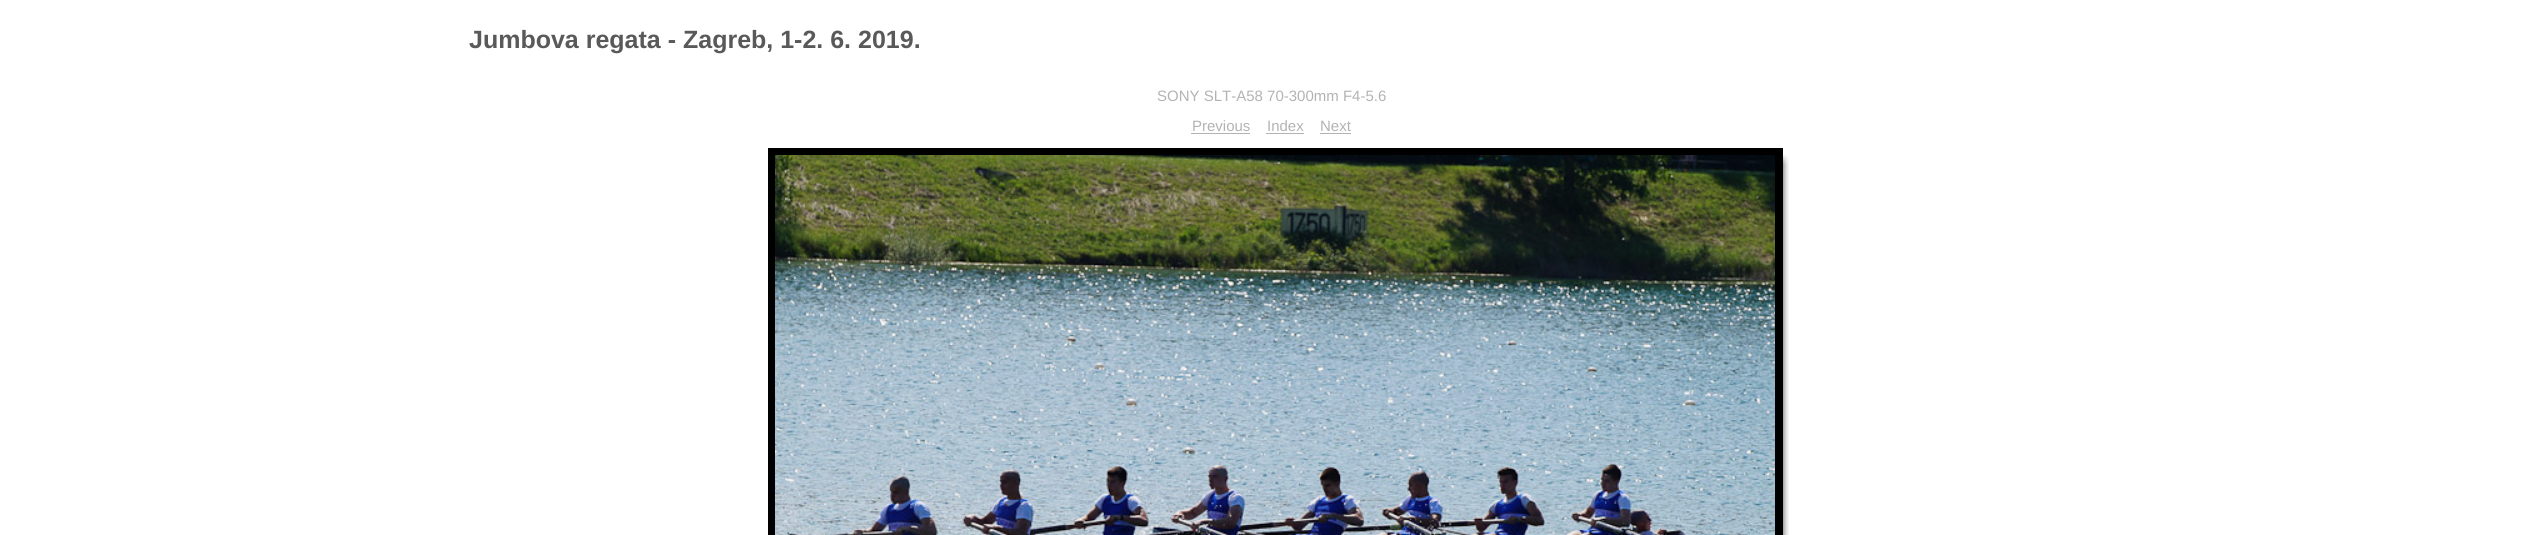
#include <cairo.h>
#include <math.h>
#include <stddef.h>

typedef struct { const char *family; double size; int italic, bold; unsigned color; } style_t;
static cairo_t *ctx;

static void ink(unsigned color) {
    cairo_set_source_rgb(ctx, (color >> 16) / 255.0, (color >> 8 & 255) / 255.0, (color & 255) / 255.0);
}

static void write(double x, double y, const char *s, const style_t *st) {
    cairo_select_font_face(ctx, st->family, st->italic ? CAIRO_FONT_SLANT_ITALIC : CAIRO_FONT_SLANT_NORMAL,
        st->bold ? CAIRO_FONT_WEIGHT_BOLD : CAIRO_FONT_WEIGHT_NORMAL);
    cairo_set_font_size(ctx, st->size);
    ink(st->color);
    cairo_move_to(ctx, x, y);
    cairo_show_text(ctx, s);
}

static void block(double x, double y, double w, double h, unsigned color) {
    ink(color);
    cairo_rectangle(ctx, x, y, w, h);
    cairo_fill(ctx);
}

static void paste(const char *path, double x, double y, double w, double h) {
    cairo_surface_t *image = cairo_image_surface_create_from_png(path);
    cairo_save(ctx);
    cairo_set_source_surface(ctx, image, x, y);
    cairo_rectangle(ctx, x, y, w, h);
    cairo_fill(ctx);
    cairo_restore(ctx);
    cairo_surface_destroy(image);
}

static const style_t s1 = {"Liberation Sans", 25, 0, 1, 0x595959};
static const style_t s2 = {"Liberation Sans", 15, 0, 0, 0xb3b3b3};

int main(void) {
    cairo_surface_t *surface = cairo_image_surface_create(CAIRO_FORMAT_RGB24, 2548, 535);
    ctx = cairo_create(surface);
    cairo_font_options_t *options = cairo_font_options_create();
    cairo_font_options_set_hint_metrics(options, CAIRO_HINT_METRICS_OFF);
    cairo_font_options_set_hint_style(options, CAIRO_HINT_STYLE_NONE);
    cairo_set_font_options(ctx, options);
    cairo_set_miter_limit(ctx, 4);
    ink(0xffffff);
    cairo_paint(ctx);
    write(469, 48, "Jumbova regata - Zagreb, 1-2. 6. 2019.", &s1);
    write(1157, 101, "SONY SLT-A58 70-300mm F4-5.6", &s2);
    write(1192, 131, "Previous", &s2);
    block(1191, 133, 59, 1, 0xb3b3b3);
    write(1267, 131, "Index", &s2);
    block(1266, 133, 38, 1, 0xb3b3b3);
    write(1320, 131, "Next", &s2);
    block(1320, 133, 31, 1, 0xb3b3b3);
    paste("pic1.png", 1783, 163, 6, 372);
    cairo_rectangle(ctx, 772, 152, 1007, 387);
    ink(0x000000);
    cairo_set_line_width(ctx, 8);
    cairo_stroke(ctx);
    paste("pic2.png", 775, 155, 1000, 380);
    paste("pic3.png", 1783, 154, 6, 10);
    cairo_surface_write_to_png(surface, "screenshot.png");
    cairo_font_options_destroy(options);
    cairo_destroy(ctx);
    cairo_surface_destroy(surface);
    return 0;
}
